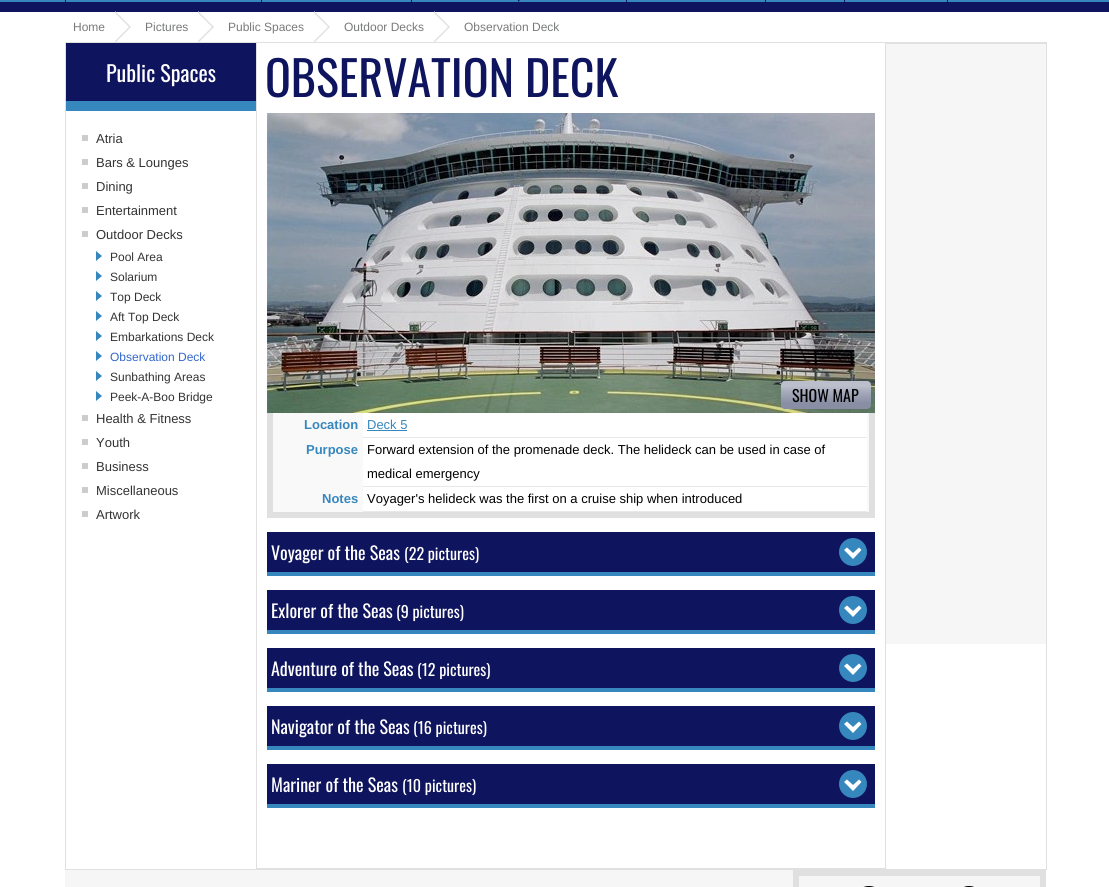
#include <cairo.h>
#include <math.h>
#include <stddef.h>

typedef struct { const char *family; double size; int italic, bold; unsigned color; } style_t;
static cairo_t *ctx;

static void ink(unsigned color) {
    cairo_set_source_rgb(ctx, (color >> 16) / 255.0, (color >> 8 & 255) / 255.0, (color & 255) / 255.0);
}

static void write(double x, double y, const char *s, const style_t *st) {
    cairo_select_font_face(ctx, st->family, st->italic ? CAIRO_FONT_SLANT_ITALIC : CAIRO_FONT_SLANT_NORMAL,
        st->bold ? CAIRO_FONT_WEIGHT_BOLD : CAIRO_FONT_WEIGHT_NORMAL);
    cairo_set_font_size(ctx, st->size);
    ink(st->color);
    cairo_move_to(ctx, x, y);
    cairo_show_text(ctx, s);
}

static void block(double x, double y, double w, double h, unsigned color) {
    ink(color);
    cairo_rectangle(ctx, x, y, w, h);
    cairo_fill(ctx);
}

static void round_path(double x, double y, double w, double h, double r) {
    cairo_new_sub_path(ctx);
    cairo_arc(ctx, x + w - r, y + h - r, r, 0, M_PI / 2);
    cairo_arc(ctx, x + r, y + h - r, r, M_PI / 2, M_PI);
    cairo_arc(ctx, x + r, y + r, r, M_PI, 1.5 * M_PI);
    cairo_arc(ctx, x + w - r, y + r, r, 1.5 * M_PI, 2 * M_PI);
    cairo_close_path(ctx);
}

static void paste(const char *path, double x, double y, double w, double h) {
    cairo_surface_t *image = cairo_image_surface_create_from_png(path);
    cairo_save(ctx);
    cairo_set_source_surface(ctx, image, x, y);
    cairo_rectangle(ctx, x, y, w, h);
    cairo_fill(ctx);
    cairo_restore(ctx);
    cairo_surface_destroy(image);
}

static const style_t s1 = {"Liberation Sans", 12, 0, 0, 0x797a7a};
static const style_t s2 = {"Oswald", 22, 0, 0, 0xffffff};
static const style_t s3 = {"Liberation Sans", 13, 0, 0, 0x333333};
static const style_t s4 = {"Liberation Sans", 12, 0, 0, 0x333333};
static const style_t s5 = {"Liberation Sans", 12, 0, 0, 0x3366cc};
static const style_t s6 = {"Oswald", 48, 0, 0, 0x0e145d};
static const style_t s7 = {"Oswald", 16, 0, 0, 0x000000};
static const style_t s8 = {"Liberation Sans", 13, 0, 1, 0x3687be};
static const style_t s9 = {"Liberation Sans", 13, 0, 0, 0x3687be};
static const style_t s10 = {"Liberation Sans", 13, 0, 0, 0x000000};
static const style_t s11 = {"Oswald", 18, 0, 0, 0xffffff};
static const style_t s12 = {"Oswald", 16, 0, 0, 0xffffff};

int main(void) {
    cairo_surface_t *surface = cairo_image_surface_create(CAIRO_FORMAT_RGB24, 1109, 887);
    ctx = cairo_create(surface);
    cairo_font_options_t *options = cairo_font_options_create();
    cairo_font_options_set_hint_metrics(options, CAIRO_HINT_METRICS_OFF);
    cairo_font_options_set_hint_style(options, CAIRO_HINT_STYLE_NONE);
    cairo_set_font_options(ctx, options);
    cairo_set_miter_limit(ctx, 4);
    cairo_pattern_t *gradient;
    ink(0xffffff);
    cairo_paint(ctx);
    block(0, 0, 1109, 2, 0x3687be);
    block(0, 2, 1109, 10, 0x0e145d);
    block(65, 0, 1, 2, 0x0e145d);
    block(261, 0, 1, 2, 0x0e145d);
    block(411, 0, 1, 2, 0x0e145d);
    cairo_new_path(ctx);
    cairo_move_to(ctx, 518, 2);
    cairo_line_to(ctx, 518, -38);
    cairo_line_to(ctx, 538, -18);
    cairo_close_path(ctx);
    cairo_fill(ctx);
    block(626, 0, 1, 2, 0x0e145d);
    block(765, 0, 1, 2, 0x0e145d);
    block(947, 0, 1, 2, 0x0e145d);
    block(844, 0, 1, 2, 0x0e145d);
    cairo_rectangle(ctx, 65.5, 42.5, 981, 827);
    ink(0xe0e0e0);
    cairo_set_line_width(ctx, 1);
    cairo_stroke(ctx);
    cairo_new_path(ctx);
    cairo_move_to(ctx, 115, 43);
    cairo_line_to(ctx, 115, 11);
    cairo_line_to(ctx, 131, 27);
    cairo_close_path(ctx);
    cairo_fill(ctx);
    write(73, 31, "Home", &s1);
    ink(0xffffff);
    cairo_new_path(ctx);
    cairo_move_to(ctx, 115, 41);
    cairo_line_to(ctx, 115, 13);
    cairo_line_to(ctx, 129, 27);
    cairo_close_path(ctx);
    cairo_fill(ctx);
    ink(0xe0e0e0);
    cairo_new_path(ctx);
    cairo_move_to(ctx, 198, 43);
    cairo_line_to(ctx, 198, 11);
    cairo_line_to(ctx, 214, 27);
    cairo_close_path(ctx);
    cairo_fill(ctx);
    write(145, 31, "Pictures", &s1);
    ink(0xffffff);
    cairo_new_path(ctx);
    cairo_move_to(ctx, 198, 41);
    cairo_line_to(ctx, 198, 13);
    cairo_line_to(ctx, 212, 27);
    cairo_close_path(ctx);
    cairo_fill(ctx);
    ink(0xe0e0e0);
    cairo_new_path(ctx);
    cairo_move_to(ctx, 314, 43);
    cairo_line_to(ctx, 314, 11);
    cairo_line_to(ctx, 330, 27);
    cairo_close_path(ctx);
    cairo_fill(ctx);
    write(228, 31, "Public Spaces", &s1);
    ink(0xffffff);
    cairo_new_path(ctx);
    cairo_move_to(ctx, 314, 41);
    cairo_line_to(ctx, 314, 13);
    cairo_line_to(ctx, 328, 27);
    cairo_close_path(ctx);
    cairo_fill(ctx);
    ink(0xe0e0e0);
    cairo_new_path(ctx);
    cairo_move_to(ctx, 434, 43);
    cairo_line_to(ctx, 434, 11);
    cairo_line_to(ctx, 450, 27);
    cairo_close_path(ctx);
    cairo_fill(ctx);
    write(344, 31, "Outdoor Decks", &s1);
    ink(0xffffff);
    cairo_new_path(ctx);
    cairo_move_to(ctx, 434, 41);
    cairo_line_to(ctx, 434, 13);
    cairo_line_to(ctx, 448, 27);
    cairo_close_path(ctx);
    cairo_fill(ctx);
    write(464, 31, "Observation Deck", &s1);
    block(66, 43, 190, 58, 0x0e145d);
    block(66, 101, 190, 10, 0x3687be);
    write(106, 82, "Public Spaces", &s2);
    block(82, 135, 6, 6, 0xcccccc);
    write(96, 143, "Atria", &s3);
    block(82, 159, 6, 6, 0xcccccc);
    write(96, 167, "Bars & Lounges", &s3);
    block(82, 183, 6, 6, 0xcccccc);
    write(96, 191, "Dining", &s3);
    block(82, 207, 6, 6, 0xcccccc);
    write(96, 215, "Entertainment", &s3);
    block(82, 231, 6, 6, 0xcccccc);
    write(96, 239, "Outdoor Decks", &s3);
    ink(0x3687be);
    cairo_new_path(ctx);
    cairo_move_to(ctx, 96, 261);
    cairo_line_to(ctx, 96, 251);
    cairo_line_to(ctx, 102, 256);
    cairo_close_path(ctx);
    cairo_fill(ctx);
    write(110, 261, "Pool Area", &s4);
    ink(0x3687be);
    cairo_new_path(ctx);
    cairo_move_to(ctx, 96, 281);
    cairo_line_to(ctx, 96, 271);
    cairo_line_to(ctx, 102, 276);
    cairo_close_path(ctx);
    cairo_fill(ctx);
    write(110, 281, "Solarium", &s4);
    ink(0x3687be);
    cairo_new_path(ctx);
    cairo_move_to(ctx, 96, 301);
    cairo_line_to(ctx, 96, 291);
    cairo_line_to(ctx, 102, 296);
    cairo_close_path(ctx);
    cairo_fill(ctx);
    write(110, 301, "Top Deck", &s4);
    ink(0x3687be);
    cairo_new_path(ctx);
    cairo_move_to(ctx, 96, 321);
    cairo_line_to(ctx, 96, 311);
    cairo_line_to(ctx, 102, 316);
    cairo_close_path(ctx);
    cairo_fill(ctx);
    write(110, 321, "Aft Top Deck", &s4);
    ink(0x3687be);
    cairo_new_path(ctx);
    cairo_move_to(ctx, 96, 341);
    cairo_line_to(ctx, 96, 331);
    cairo_line_to(ctx, 102, 336);
    cairo_close_path(ctx);
    cairo_fill(ctx);
    write(110, 341, "Embarkations Deck", &s4);
    ink(0x3687be);
    cairo_new_path(ctx);
    cairo_move_to(ctx, 96, 361);
    cairo_line_to(ctx, 96, 351);
    cairo_line_to(ctx, 102, 356);
    cairo_close_path(ctx);
    cairo_fill(ctx);
    write(110, 361, "Observation Deck", &s5);
    ink(0x3687be);
    cairo_new_path(ctx);
    cairo_move_to(ctx, 96, 381);
    cairo_line_to(ctx, 96, 371);
    cairo_line_to(ctx, 102, 376);
    cairo_close_path(ctx);
    cairo_fill(ctx);
    write(110, 381, "Sunbathing Areas", &s4);
    ink(0x3687be);
    cairo_new_path(ctx);
    cairo_move_to(ctx, 96, 401);
    cairo_line_to(ctx, 96, 391);
    cairo_line_to(ctx, 102, 396);
    cairo_close_path(ctx);
    cairo_fill(ctx);
    write(110, 401, "Peek-A-Boo Bridge", &s4);
    block(82, 415, 6, 6, 0xcccccc);
    write(96, 423, "Health & Fitness", &s3);
    block(82, 439, 6, 6, 0xcccccc);
    write(96, 447, "Youth", &s3);
    block(82, 463, 6, 6, 0xcccccc);
    write(96, 471, "Business", &s3);
    block(82, 487, 6, 6, 0xcccccc);
    write(96, 495, "Miscellaneous", &s3);
    block(82, 511, 6, 6, 0xcccccc);
    write(96, 519, "Artwork", &s3);
    block(885, 43, 1, 826, 0xe0e0e0);
    block(256, 868, 630, 1, 0xe0e0e0);
    block(256, 43, 1, 826, 0xe0e0e0);
    write(265, 97, "OBSERVATION DECK", &s6);
    paste("pic1.png", 267, 113, 608, 300);
    gradient = cairo_pattern_create_linear(781, 409, 781, 381);
    cairo_pattern_add_color_stop_rgba(gradient, 0.21, 0.537, 0.557, 0.647, 1);
    cairo_pattern_add_color_stop_rgba(gradient, 0.64, 0.659, 0.675, 0.741, 1);
    cairo_pattern_add_color_stop_rgba(gradient, 0.81, 0.733, 0.745, 0.796, 1);
    cairo_set_source(ctx, gradient);
    cairo_pattern_destroy(gradient);
    round_path(781, 381, 90, 28, 4);
    cairo_fill(ctx);
    write(792, 402, "SHOW MAP", &s7);
    block(273, 413, 596, 99, 0xf9f9f9);
    block(869, 413, 6, 105, 0xe0e0e0);
    block(267, 512, 608, 6, 0xe0e0e0);
    block(267, 413, 6, 105, 0xe0e0e0);
    write(304, 429, "Location", &s8);
    block(363, 413, 504, 24, 0xffffff);
    block(363, 437, 504, 1, 0xe8e8e8);
    write(367, 429, "Deck 5", &s9);
    block(367, 430, 40, 1, 0x3687be);
    write(306, 454, "Purpose", &s8);
    block(363, 438, 504, 48, 0xffffff);
    block(363, 486, 504, 1, 0xe8e8e8);
    write(367, 454, "Forward extension of the promenade deck. The helideck can be used in case of", &s10);
    write(367, 478, "medical emergency", &s10);
    write(322, 503, "Notes", &s8);
    block(363, 487, 504, 24, 0xffffff);
    block(363, 511, 504, 1, 0xe8e8e8);
    write(367, 503, "Voyager's helideck was the first on a cruise ship when introduced", &s10);
    block(267, 532, 608, 40, 0x0e145d);
    ink(0x3687be);
    cairo_new_path(ctx);
    cairo_arc(ctx, 853, 552, 14, 0, 2 * M_PI);
    cairo_fill(ctx);
    ink(0xffffff);
    cairo_set_fill_rule(ctx, CAIRO_FILL_RULE_EVEN_ODD);
    cairo_new_path(ctx);
    cairo_move_to(ctx, 853, 553);
    cairo_line_to(ctx, 847, 547.5);
    cairo_line_to(ctx, 844, 550);
    cairo_line_to(ctx, 853, 559);
    cairo_line_to(ctx, 861.5, 550);
    cairo_line_to(ctx, 859, 547.5);
    cairo_close_path(ctx);
    cairo_fill(ctx);
    block(267, 572, 608, 4, 0x3687be);
    write(271, 560, "Voyager of the Seas", &s11);
    write(404, 560, "(22 pictures)", &s12);
    block(267, 590, 608, 40, 0x0e145d);
    ink(0x3687be);
    cairo_new_path(ctx);
    cairo_arc(ctx, 853, 610, 14, 0, 2 * M_PI);
    cairo_fill(ctx);
    ink(0xffffff);
    cairo_new_path(ctx);
    cairo_move_to(ctx, 853, 611);
    cairo_line_to(ctx, 847, 605.5);
    cairo_line_to(ctx, 844, 608);
    cairo_line_to(ctx, 853, 617);
    cairo_line_to(ctx, 861.5, 608);
    cairo_line_to(ctx, 859, 605.5);
    cairo_close_path(ctx);
    cairo_fill(ctx);
    block(267, 630, 608, 4, 0x3687be);
    write(271, 618, "Exlorer of the Seas", &s11);
    write(396, 618, "(9 pictures)", &s12);
    block(267, 648, 608, 40, 0x0e145d);
    ink(0x3687be);
    cairo_new_path(ctx);
    cairo_arc(ctx, 853, 668, 14, 0, 2 * M_PI);
    cairo_fill(ctx);
    ink(0xffffff);
    cairo_new_path(ctx);
    cairo_move_to(ctx, 853, 669);
    cairo_line_to(ctx, 847, 663.5);
    cairo_line_to(ctx, 844, 666);
    cairo_line_to(ctx, 853, 675);
    cairo_line_to(ctx, 861.5, 666);
    cairo_line_to(ctx, 859, 663.5);
    cairo_close_path(ctx);
    cairo_fill(ctx);
    block(267, 688, 608, 4, 0x3687be);
    write(271, 676, "Adventure of the Seas", &s11);
    write(417, 676, "(12 pictures)", &s12);
    block(267, 706, 608, 40, 0x0e145d);
    ink(0x3687be);
    cairo_new_path(ctx);
    cairo_arc(ctx, 853, 726, 14, 0, 2 * M_PI);
    cairo_fill(ctx);
    ink(0xffffff);
    cairo_new_path(ctx);
    cairo_move_to(ctx, 853, 727);
    cairo_line_to(ctx, 847, 721.5);
    cairo_line_to(ctx, 844, 724);
    cairo_line_to(ctx, 853, 733);
    cairo_line_to(ctx, 861.5, 724);
    cairo_line_to(ctx, 859, 721.5);
    cairo_close_path(ctx);
    cairo_fill(ctx);
    block(267, 746, 608, 4, 0x3687be);
    write(271, 734, "Navigator of the Seas", &s11);
    write(413, 734, "(16 pictures)", &s12);
    block(267, 764, 608, 40, 0x0e145d);
    ink(0x3687be);
    cairo_new_path(ctx);
    cairo_arc(ctx, 853, 784, 14, 0, 2 * M_PI);
    cairo_fill(ctx);
    ink(0xffffff);
    cairo_new_path(ctx);
    cairo_move_to(ctx, 853, 785);
    cairo_line_to(ctx, 847, 779.5);
    cairo_line_to(ctx, 844, 782);
    cairo_line_to(ctx, 853, 791);
    cairo_line_to(ctx, 861.5, 782);
    cairo_line_to(ctx, 859, 779.5);
    cairo_close_path(ctx);
    cairo_fill(ctx);
    block(267, 804, 608, 4, 0x3687be);
    write(271, 792, "Mariner of the Seas", &s11);
    write(402, 792, "(10 pictures)", &s12);
    block(886, 43, 160, 1, 0xe0e0e0);
    block(886, 44, 160, 600, 0xf6f6f6);
    block(65, 870, 728, 17, 0xf6f6f6);
    cairo_rectangle(ctx, 796, 873, 247, 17);
    cairo_fill_preserve(ctx);
    ink(0xe0e0e0);
    cairo_set_line_width(ctx, 6);
    cairo_stroke(ctx);
    paste("pic2.png", 863, 886, 12, 1);
    paste("pic3.png", 964, 886, 10, 1);
    cairo_surface_write_to_png(surface, "screenshot.png");
    cairo_font_options_destroy(options);
    cairo_destroy(ctx);
    cairo_surface_destroy(surface);
    return 0;
}
